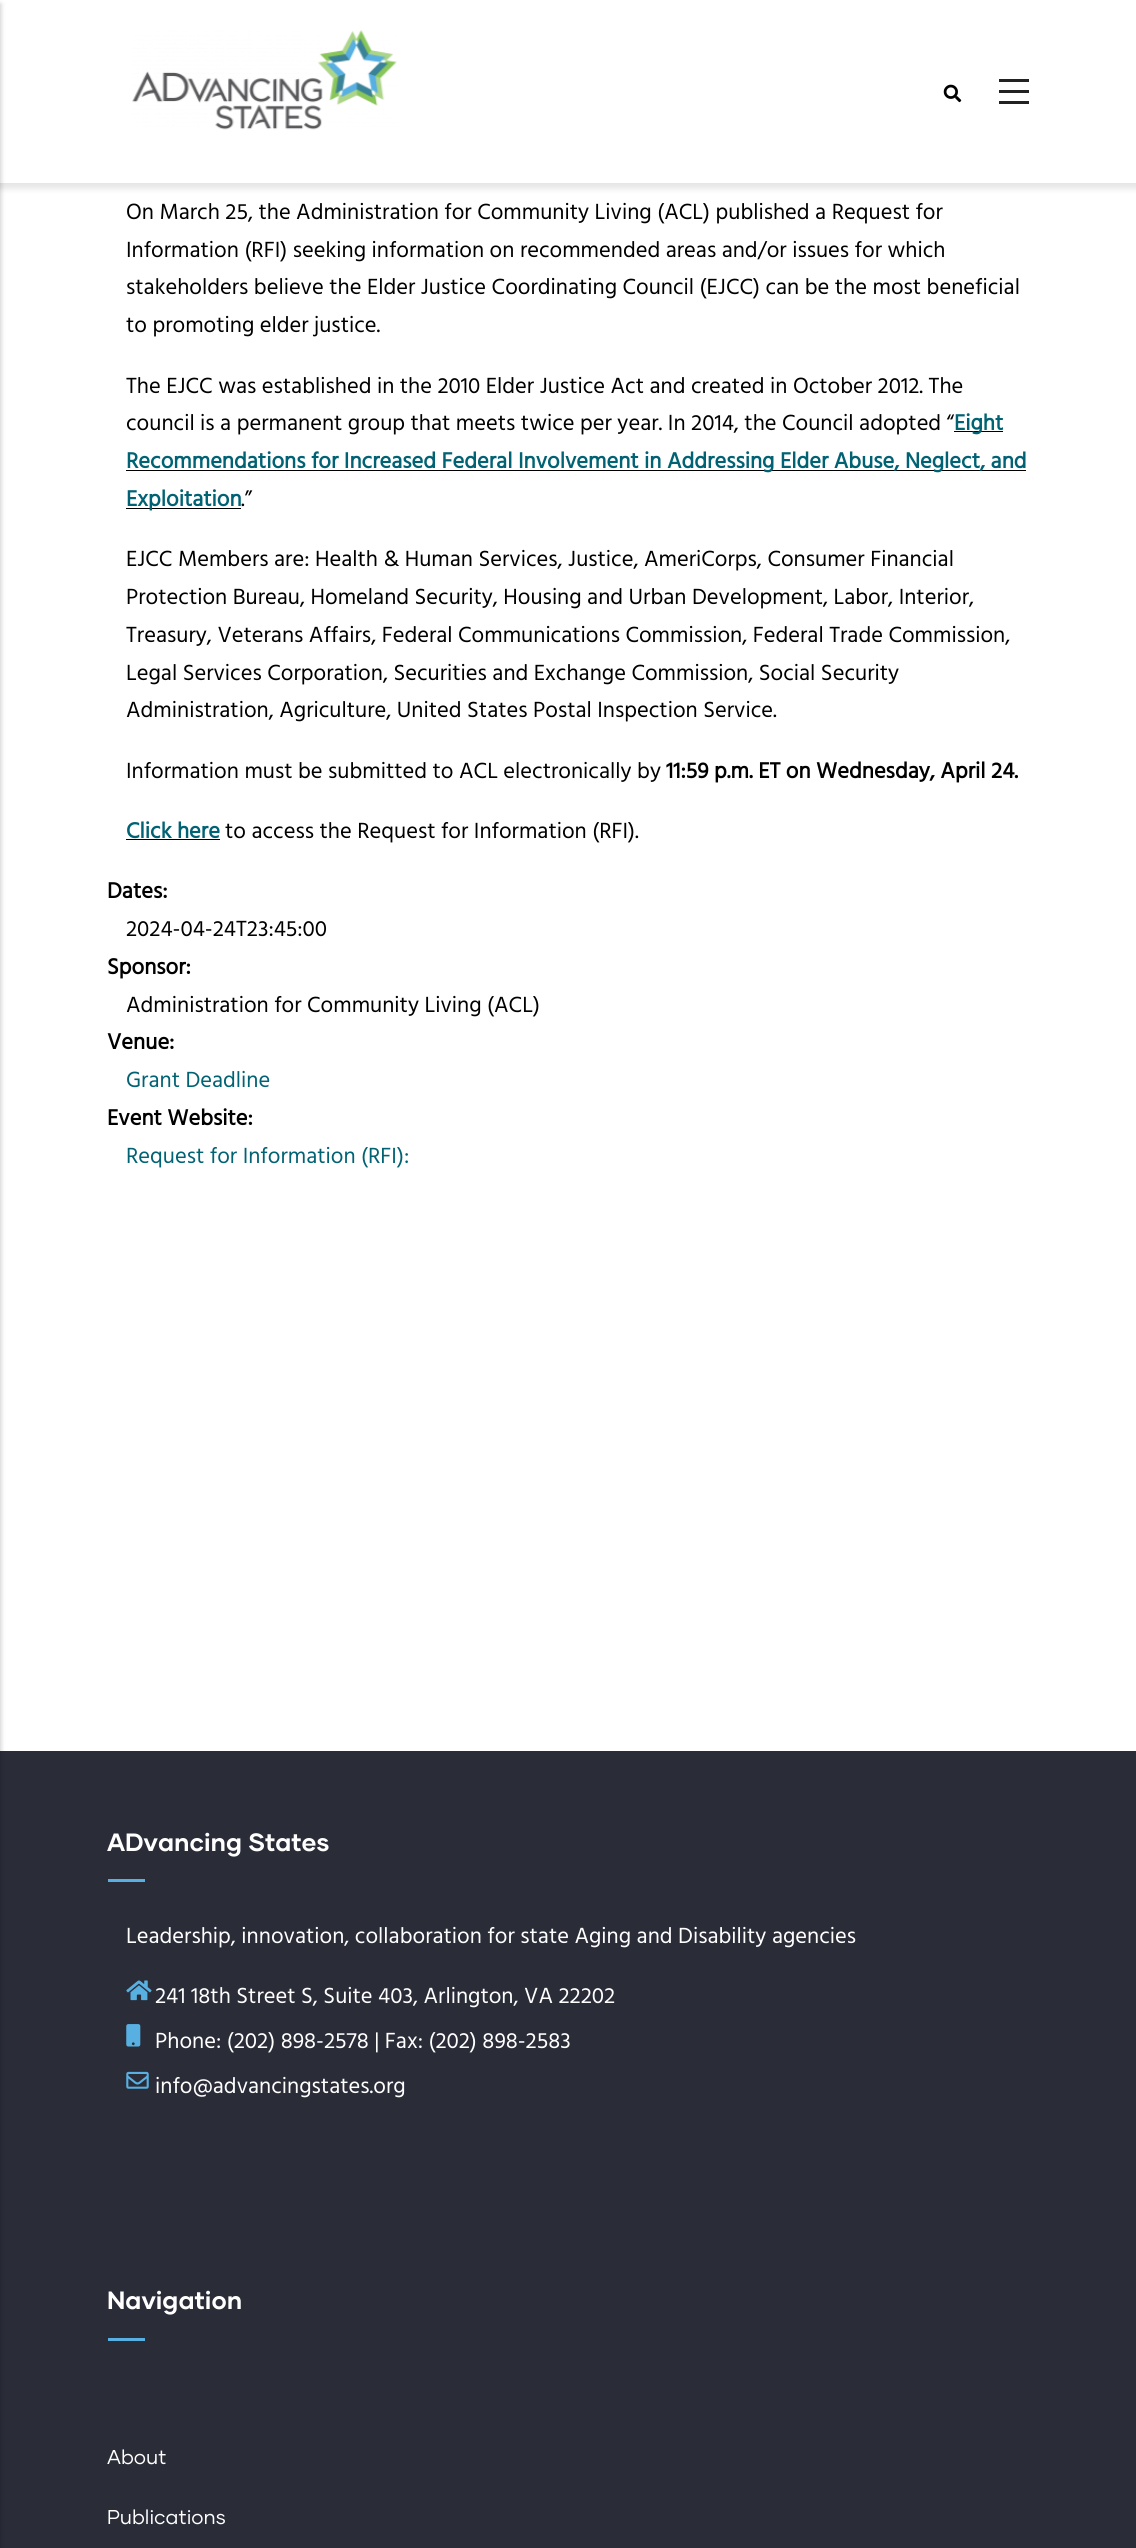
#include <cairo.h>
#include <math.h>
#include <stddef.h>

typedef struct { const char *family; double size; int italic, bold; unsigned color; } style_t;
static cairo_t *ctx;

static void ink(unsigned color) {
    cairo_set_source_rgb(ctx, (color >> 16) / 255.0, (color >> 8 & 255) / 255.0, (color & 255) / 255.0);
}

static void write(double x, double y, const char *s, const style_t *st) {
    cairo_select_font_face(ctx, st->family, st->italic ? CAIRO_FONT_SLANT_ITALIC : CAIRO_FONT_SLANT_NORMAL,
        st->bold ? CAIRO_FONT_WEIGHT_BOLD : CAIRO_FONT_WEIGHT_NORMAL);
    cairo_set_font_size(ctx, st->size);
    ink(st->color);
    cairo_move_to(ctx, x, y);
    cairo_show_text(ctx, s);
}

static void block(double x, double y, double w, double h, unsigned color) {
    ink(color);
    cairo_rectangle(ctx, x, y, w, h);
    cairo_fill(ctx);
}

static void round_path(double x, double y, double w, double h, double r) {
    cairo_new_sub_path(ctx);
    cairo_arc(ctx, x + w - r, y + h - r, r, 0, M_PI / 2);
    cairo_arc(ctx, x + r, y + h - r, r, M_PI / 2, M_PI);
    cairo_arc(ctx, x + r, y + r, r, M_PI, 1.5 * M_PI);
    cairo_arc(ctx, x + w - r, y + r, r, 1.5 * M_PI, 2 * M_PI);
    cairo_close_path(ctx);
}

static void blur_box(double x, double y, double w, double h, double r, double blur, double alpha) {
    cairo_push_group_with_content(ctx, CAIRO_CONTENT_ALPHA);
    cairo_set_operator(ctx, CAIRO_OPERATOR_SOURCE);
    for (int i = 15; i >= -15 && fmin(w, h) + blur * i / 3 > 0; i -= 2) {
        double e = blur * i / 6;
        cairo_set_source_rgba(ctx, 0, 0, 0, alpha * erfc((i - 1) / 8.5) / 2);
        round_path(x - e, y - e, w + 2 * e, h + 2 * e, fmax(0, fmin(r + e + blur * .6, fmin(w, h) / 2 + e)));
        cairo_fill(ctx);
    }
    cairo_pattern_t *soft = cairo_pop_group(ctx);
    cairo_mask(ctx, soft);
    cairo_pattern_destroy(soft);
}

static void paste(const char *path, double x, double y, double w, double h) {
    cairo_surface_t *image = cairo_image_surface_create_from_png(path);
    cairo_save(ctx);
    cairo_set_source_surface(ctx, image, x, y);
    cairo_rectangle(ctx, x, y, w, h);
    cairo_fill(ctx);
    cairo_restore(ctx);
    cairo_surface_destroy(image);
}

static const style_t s1 = {"Hind", 22.5, 0, 0, 0x000000};
static const style_t s2 = {"Hind", 22.5, 0, 1, 0x006273};
static const style_t s3 = {"Hind", 22.5, 0, 1, 0x000000};
static const style_t s4 = {"Hind", 22.5, 0, 0, 0x006273};
static const style_t s5 = {"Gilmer", 25, 0, 1, 0xffffff};
static const style_t s6 = {"Hind", 22.5, 0, 0, 0xffffff};
static const style_t s7 = {"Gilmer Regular", 20, 0, 0, 0xffffff};

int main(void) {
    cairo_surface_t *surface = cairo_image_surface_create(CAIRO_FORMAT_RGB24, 1136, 2548);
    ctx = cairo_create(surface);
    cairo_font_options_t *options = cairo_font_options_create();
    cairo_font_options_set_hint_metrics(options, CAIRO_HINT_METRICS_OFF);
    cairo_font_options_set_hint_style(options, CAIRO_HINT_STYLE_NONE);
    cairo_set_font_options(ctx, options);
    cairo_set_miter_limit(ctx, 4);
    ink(0xffffff);
    cairo_paint(ctx);
    ink(0x000000);
    blur_box(-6, -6, 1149, 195, 0, 3, 0.1);
    block(0, 0, 1136, 183, 0xffffff);
    block(0, 1751, 1136, 797, 0x2a2c38);
    ink(0x000000);
    blur_box(-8, 4, 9, 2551, 0, 2.5, 0.2);
    paste("pic1.png", 943, 84, 19, 19);
    block(999, 79, 30, 3, 0x222222);
    block(999, 90, 30, 3, 0x222222);
    block(999, 101, 30, 3, 0x222222);
    paste("pic2.png", 132, 30, 265, 100);
    write(126, 219, "On March 25, the Administration for Community Living (ACL) published a Request for", &s1);
    write(126, 257, "Information (RFI) seeking information on recommended areas and/or issues for which", &s1);
    write(126, 294, "stakeholders believe the Elder Justice Coordinating Council (EJCC) can be the most beneficial", &s1);
    write(126, 332, "to promoting elder justice.", &s1);
    write(126, 393, "The EJCC was established in the 2010 Elder Justice Act and created in October 2012. The", &s1);
    write(126, 430, "council is a permanent group that meets twice per year. In 2014, the Council adopted “", &s1);
    block(954, 431, 49, 1, 0x000000);
    write(954, 430, "Eight", &s2);
    block(126, 470, 900, 1, 0x000000);
    write(126, 468, "Recommendations for Increased Federal Involvement in Addressing Elder Abuse, Neglect, and", &s2);
    block(126, 508, 115, 1, 0x000000);
    write(126, 506, "Exploitation", &s2);
    write(241, 506, ".”", &s1);
    write(126, 566, "EJCC Members are: Health & Human Services, Justice, AmeriCorps, Consumer Financial", &s1);
    write(126, 604, "Protection Bureau, Homeland Security, Housing and Urban Development, Labor, Interior,", &s1);
    write(126, 642, "Treasury, Veterans Affairs, Federal Communications Commission, Federal Trade Commission,", &s1);
    write(126, 680, "Legal Services Corporation, Securities and Exchange Commission, Social Security", &s1);
    write(126, 717, "Administration, Agriculture, United States Postal Inspection Service.", &s1);
    write(126, 778, "Information must be submitted to ACL electronically by", &s1);
    write(666, 778, "11:59 p.m. ET on Wednesday, April 24.", &s3);
    write(126, 838, "Click here", &s2);
    block(126, 839, 94, 1, 0x000000);
    write(225, 838, "to access the Request for Information (RFI).", &s1);
    write(107, 898, "Dates:", &s3);
    write(126, 936, "2024-04-24T23:45:00", &s1);
    write(107, 974, "Sponsor:", &s3);
    write(126, 1012, "Administration for Community Living (ACL)", &s1);
    write(107, 1049, "Venue:", &s3);
    write(126, 1087, "Grant Deadline", &s4);
    write(107, 1125, "Event Website:", &s3);
    write(126, 1163, "Request for Information (RFI):", &s4);
    write(107, 1851, "ADvancing States", &s5);
    block(108, 1879, 37, 3, 0x58b0e2);
    write(126, 1943, "Leadership, innovation, collaboration for state Aging and Disability agencies", &s6);
    paste("pic3.png", 126, 1980, 26, 21);
    write(155, 2003, "241 18th Street S, Suite 403, Arlington, VA 22202", &s6);
    paste("pic4.png", 126, 2024, 15, 23);
    write(155, 2048, "Phone: (202) 898-2578 | Fax: (202) 898-2583", &s6);
    paste("pic5.png", 126, 2071, 23, 18);
    write(155, 2093, "info@advancingstates.org", &s6);
    write(107, 2309, "Navigation", &s5);
    block(108, 2338, 37, 3, 0x58b0e2);
    write(107, 2464, "About", &s7);
    write(107, 2524, "Publications", &s7);
    cairo_surface_write_to_png(surface, "screenshot.png");
    cairo_font_options_destroy(options);
    cairo_destroy(ctx);
    cairo_surface_destroy(surface);
    return 0;
}
